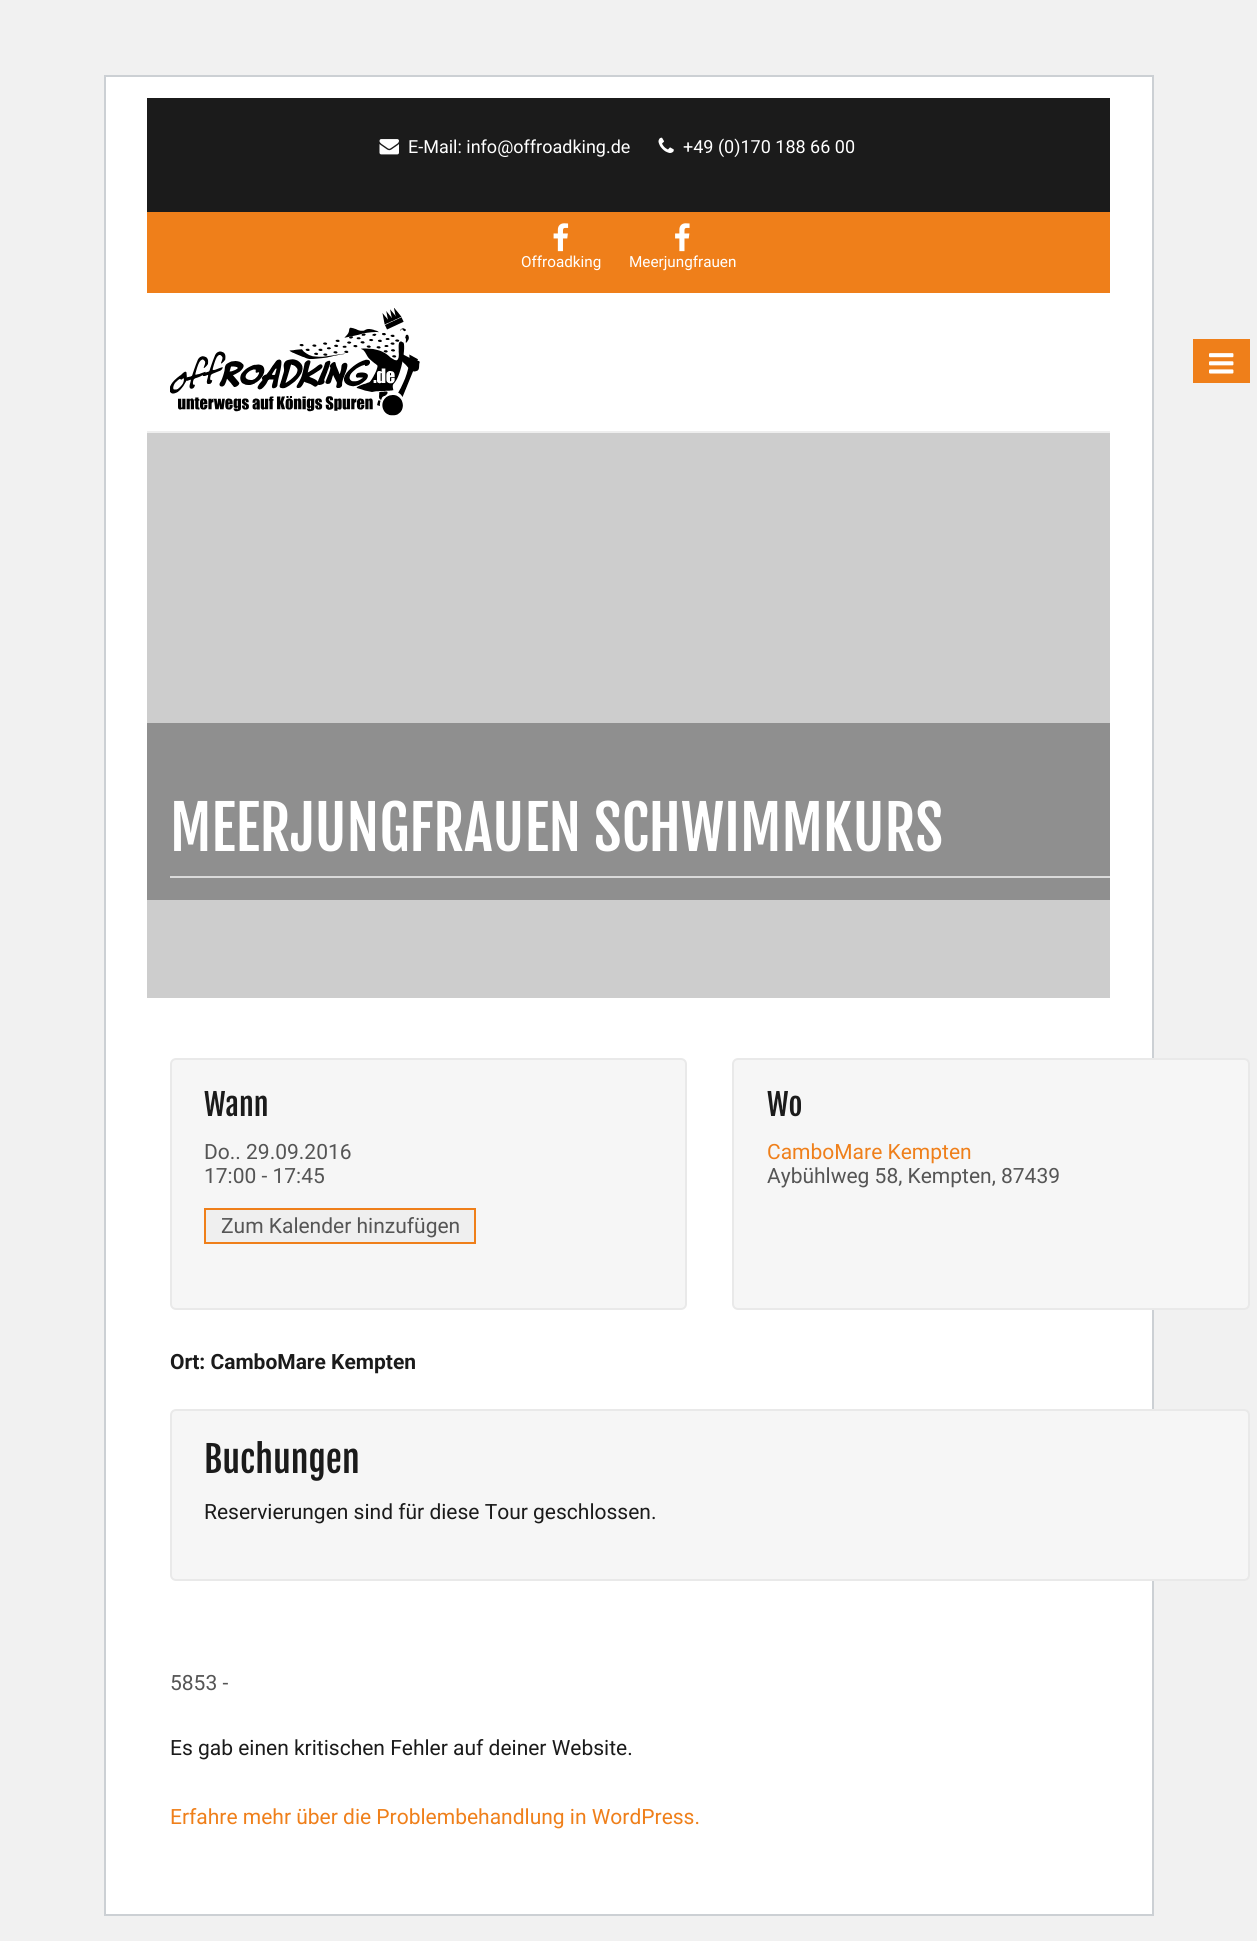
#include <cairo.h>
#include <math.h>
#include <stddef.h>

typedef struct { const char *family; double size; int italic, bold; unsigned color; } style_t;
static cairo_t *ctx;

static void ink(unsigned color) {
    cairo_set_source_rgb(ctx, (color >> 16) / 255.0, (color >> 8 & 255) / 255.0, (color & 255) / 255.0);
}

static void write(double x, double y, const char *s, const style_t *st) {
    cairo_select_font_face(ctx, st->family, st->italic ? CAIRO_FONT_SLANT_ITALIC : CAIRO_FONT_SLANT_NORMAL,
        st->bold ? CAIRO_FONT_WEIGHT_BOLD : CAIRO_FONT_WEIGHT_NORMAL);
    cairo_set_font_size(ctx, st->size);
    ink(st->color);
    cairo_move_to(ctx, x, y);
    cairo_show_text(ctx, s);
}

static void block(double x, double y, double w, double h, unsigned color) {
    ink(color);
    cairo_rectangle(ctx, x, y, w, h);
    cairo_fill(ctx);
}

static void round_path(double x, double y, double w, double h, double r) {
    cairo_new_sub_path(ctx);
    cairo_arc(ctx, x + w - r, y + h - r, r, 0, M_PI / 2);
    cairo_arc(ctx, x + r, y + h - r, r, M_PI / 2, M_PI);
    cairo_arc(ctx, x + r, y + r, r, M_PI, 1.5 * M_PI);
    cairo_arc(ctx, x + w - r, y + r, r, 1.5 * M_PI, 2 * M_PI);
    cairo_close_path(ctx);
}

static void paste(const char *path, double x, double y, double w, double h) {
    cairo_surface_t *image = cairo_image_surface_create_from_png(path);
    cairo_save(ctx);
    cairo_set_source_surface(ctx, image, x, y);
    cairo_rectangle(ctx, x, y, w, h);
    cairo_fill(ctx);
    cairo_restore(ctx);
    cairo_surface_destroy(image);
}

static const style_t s1 = {"Roboto", 18, 0, 0, 0xffffff};
static const style_t s2 = {"Roboto", 15.25, 0, 0, 0xffffff};
static const style_t s3 = {"Fjalla One", 60, 0, 0, 0xffffff};
static const style_t s4 = {"Fjalla One", 30, 0, 0, 0x1b1b1b};
static const style_t s5 = {"Roboto", 21, 0, 0, 0x555555};
static const style_t s6 = {"Roboto", 21, 0, 0, 0xef7f1a};
static const style_t s7 = {"Roboto", 21, 0, 1, 0x1b1b1b};
static const style_t s8 = {"Fjalla One", 36, 0, 0, 0x1b1b1b};
static const style_t s9 = {"Roboto", 21, 0, 0, 0x1b1b1b};

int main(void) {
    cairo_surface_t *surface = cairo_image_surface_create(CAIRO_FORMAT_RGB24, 1257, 1941);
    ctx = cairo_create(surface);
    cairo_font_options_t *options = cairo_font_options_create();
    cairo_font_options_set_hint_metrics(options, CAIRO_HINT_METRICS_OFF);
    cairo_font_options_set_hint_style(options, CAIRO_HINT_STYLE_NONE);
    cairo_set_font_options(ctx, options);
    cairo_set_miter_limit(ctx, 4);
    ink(0xf1f1f1);
    cairo_paint(ctx);
    ink(0xffffff);
    cairo_rectangle(ctx, 105, 76, 1048, 1839);
    cairo_fill_preserve(ctx);
    ink(0xccd0d4);
    cairo_stroke(ctx);
    block(147, 431, 963, 2, 0xeeeeee);
    block(147, 98, 963, 114, 0x1b1b1b);
    paste("pic1.png", 379, 139, 20, 16);
    write(408, 153, "E-Mail: info@offroadking.de", &s1);
    paste("pic2.png", 658, 137, 16, 16);
    write(683, 153, "+49 (0)170 188 66 00", &s1);
    block(147, 212, 963, 81, 0xef7f1a);
    paste("pic3.png", 553, 223, 16, 29);
    write(521, 267, "Offroadking", &s2);
    paste("pic4.png", 675, 223, 15, 29);
    write(629, 267, "Meerjungfrauen", &s2);
    paste("pic5.png", 170, 308, 250, 108);
    block(1193, 339, 57, 44, 0xef7f1a);
    paste("pic6.png", 1209, 353, 25, 21);
    block(147, 433, 963, 565, 0xcdcdcd);
    block(147, 723, 963, 177, 0x8f8f8f);
    block(170, 876, 940, 2, 0xdadada);
    write(170, 851, "MEERJUNGFRAUEN SCHWIMMKURS", &s3);
    ink(0xf6f6f6);
    round_path(171, 1059, 515, 250, 5);
    cairo_fill_preserve(ctx);
    ink(0xe9e9e9);
    cairo_stroke(ctx);
    write(204, 1116, "Wann", &s4);
    write(204, 1159, "Do.. 29.09.2016", &s5);
    write(204, 1183, "17:00 - 17:45", &s5);
    ink(0xefefef);
    cairo_rectangle(ctx, 205, 1209, 270, 34);
    cairo_fill_preserve(ctx);
    ink(0xef7f1a);
    cairo_stroke(ctx);
    write(221, 1233, "Zum Kalender hinzufügen", &s5);
    ink(0xf6f6f6);
    round_path(733, 1059, 516, 250, 5);
    cairo_fill_preserve(ctx);
    ink(0xe9e9e9);
    cairo_stroke(ctx);
    write(767, 1116, "Wo", &s4);
    write(767, 1159, "CamboMare Kempten", &s6);
    write(767, 1183, "Aybühlweg 58, Kempten, 87439", &s5);
    write(170, 1369, "Ort: CamboMare Kempten", &s7);
    ink(0xf6f6f6);
    round_path(171, 1410, 1078, 170, 5);
    cairo_fill_preserve(ctx);
    ink(0xe9e9e9);
    cairo_stroke(ctx);
    write(204, 1473, "Buchungen", &s8);
    write(204, 1519, "Reservierungen sind für diese Tour geschlossen.", &s9);
    write(170, 1690, "5853 -", &s5);
    write(170, 1755, "Es gab einen kritischen Fehler auf deiner Website.", &s9);
    write(170, 1824, "Erfahre mehr über die Problembehandlung in WordPress.", &s6);
    cairo_surface_write_to_png(surface, "screenshot.png");
    cairo_font_options_destroy(options);
    cairo_destroy(ctx);
    cairo_surface_destroy(surface);
    return 0;
}
